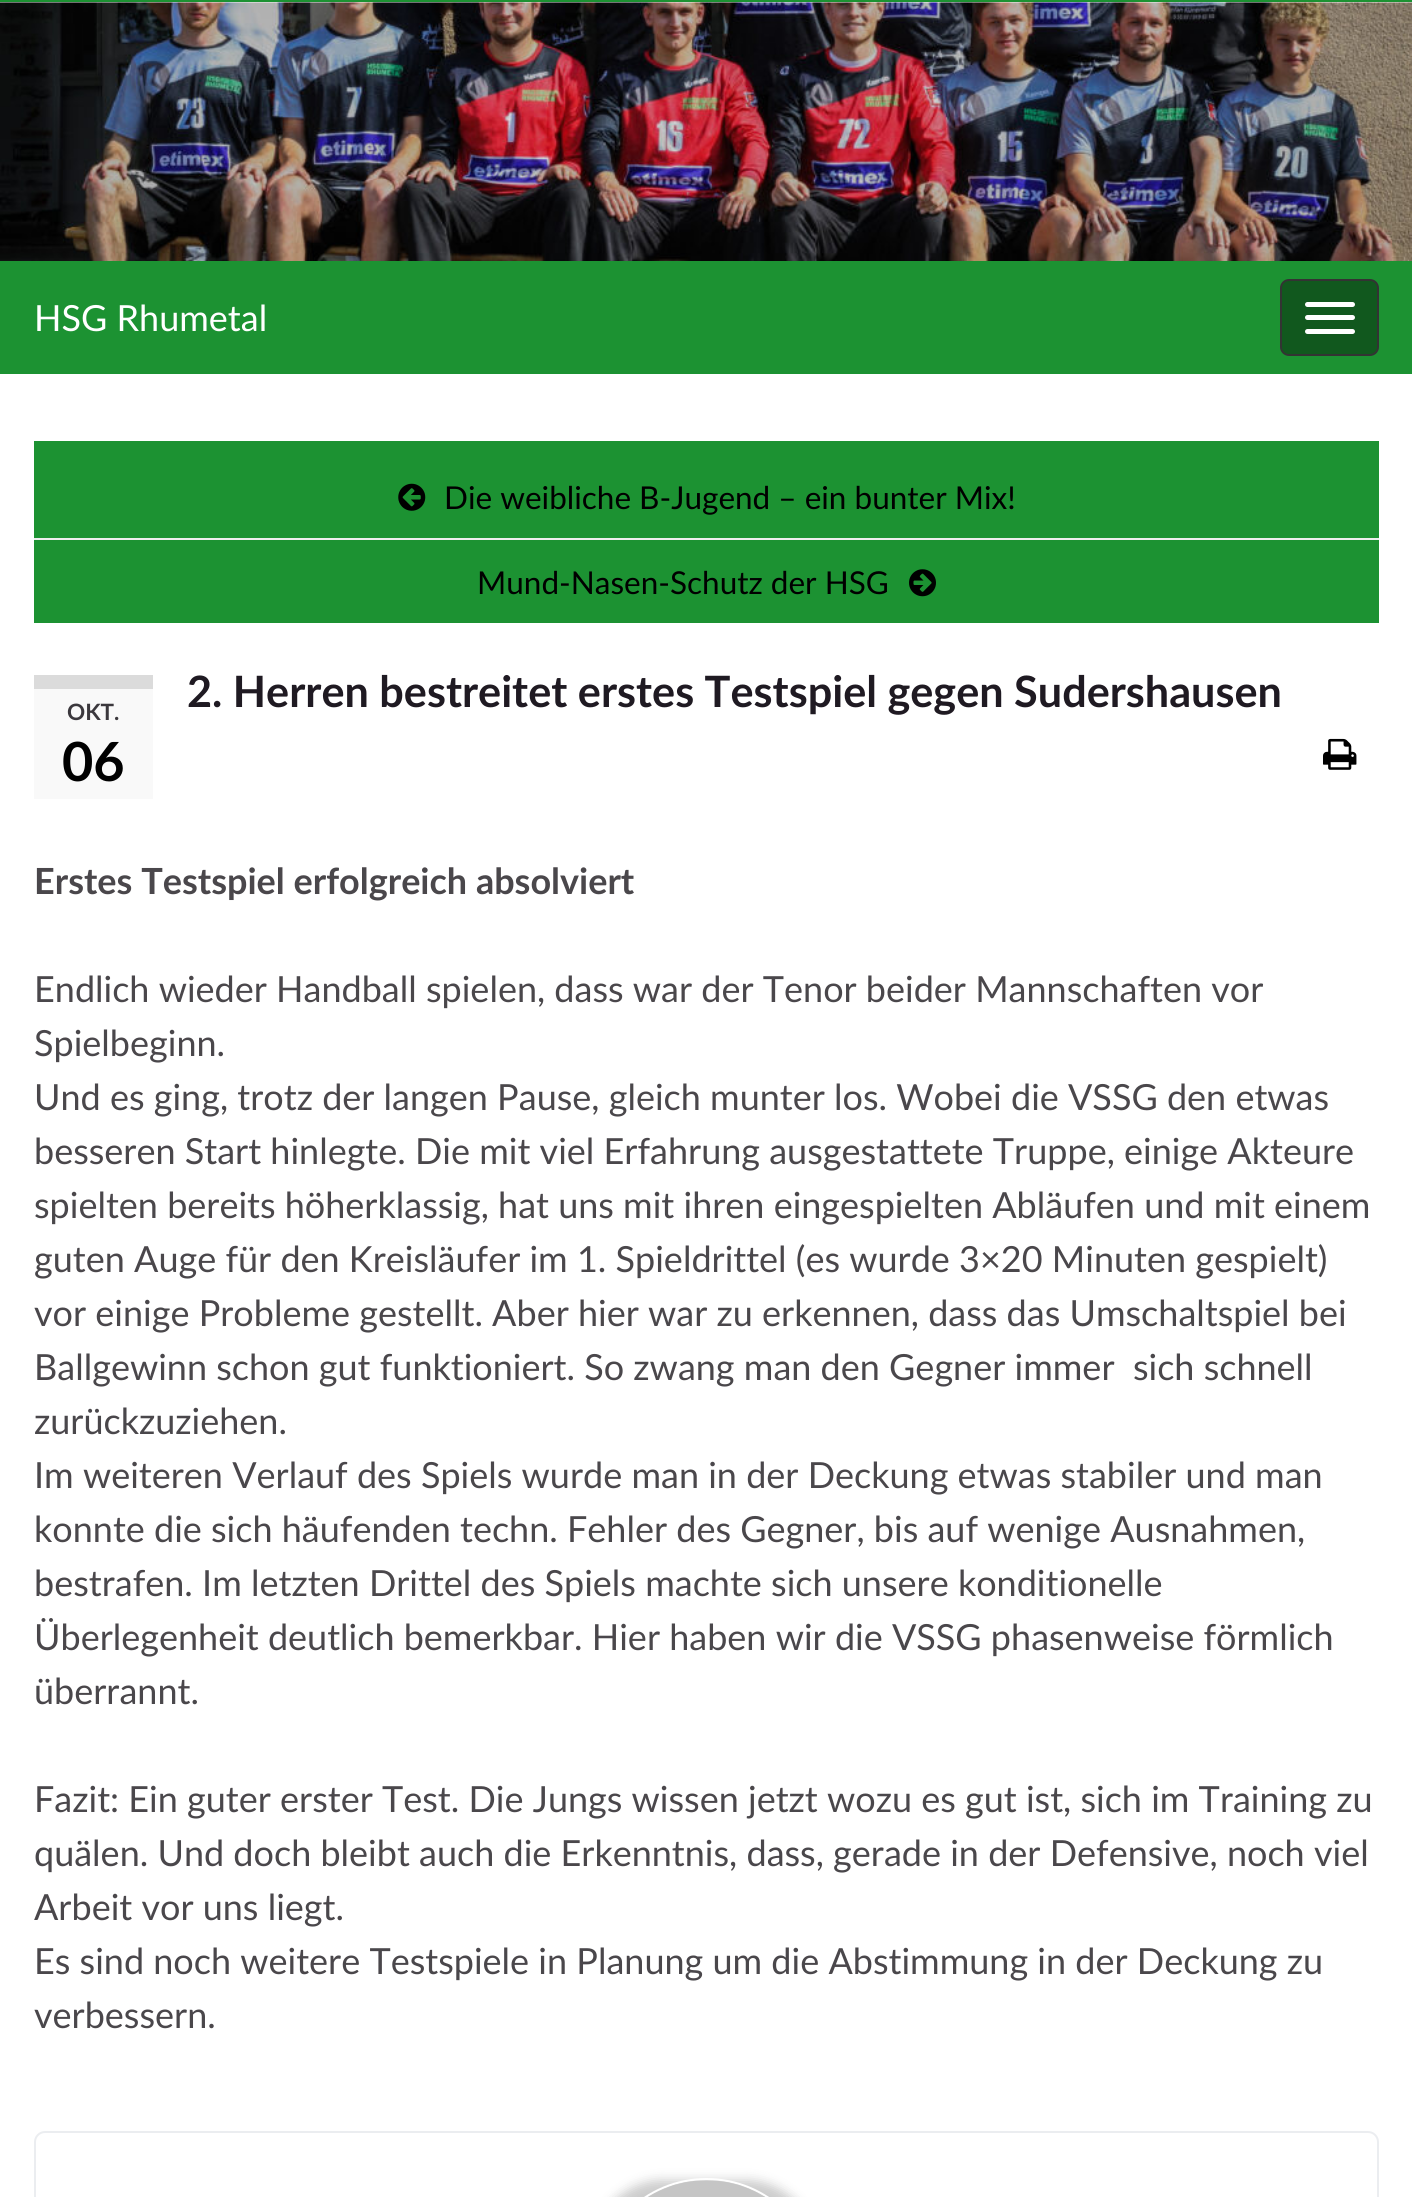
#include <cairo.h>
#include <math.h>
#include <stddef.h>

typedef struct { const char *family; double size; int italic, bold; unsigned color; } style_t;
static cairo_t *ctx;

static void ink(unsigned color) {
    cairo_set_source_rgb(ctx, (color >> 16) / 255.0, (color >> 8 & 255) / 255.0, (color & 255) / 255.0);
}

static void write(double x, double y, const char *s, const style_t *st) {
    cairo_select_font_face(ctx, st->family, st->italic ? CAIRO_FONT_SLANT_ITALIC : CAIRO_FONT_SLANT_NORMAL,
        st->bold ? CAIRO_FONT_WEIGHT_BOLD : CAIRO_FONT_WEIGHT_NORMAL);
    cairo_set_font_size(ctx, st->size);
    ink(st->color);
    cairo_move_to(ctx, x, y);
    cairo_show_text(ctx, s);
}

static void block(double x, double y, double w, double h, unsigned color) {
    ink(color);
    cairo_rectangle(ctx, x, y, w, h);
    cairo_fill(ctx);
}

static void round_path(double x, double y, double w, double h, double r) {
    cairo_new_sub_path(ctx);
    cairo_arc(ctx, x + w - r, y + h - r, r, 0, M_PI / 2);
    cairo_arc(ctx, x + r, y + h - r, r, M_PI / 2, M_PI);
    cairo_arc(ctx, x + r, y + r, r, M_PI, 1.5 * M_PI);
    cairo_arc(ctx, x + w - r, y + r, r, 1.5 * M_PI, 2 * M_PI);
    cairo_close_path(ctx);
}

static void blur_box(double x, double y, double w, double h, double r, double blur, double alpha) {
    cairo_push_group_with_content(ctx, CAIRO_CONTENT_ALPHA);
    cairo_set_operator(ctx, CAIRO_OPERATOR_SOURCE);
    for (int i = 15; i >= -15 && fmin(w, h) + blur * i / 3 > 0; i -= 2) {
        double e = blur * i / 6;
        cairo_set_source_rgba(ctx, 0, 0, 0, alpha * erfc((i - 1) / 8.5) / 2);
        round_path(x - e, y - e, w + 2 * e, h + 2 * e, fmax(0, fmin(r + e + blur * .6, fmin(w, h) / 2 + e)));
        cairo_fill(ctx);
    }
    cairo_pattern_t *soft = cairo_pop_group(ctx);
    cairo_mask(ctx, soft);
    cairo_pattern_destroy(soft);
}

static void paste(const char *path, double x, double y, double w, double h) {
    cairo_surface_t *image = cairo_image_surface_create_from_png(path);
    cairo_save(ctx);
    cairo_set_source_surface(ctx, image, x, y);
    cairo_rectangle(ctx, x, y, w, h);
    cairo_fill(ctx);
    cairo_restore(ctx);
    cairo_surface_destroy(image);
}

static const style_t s1 = {"Lato", 36, 0, 0, 0xffffff};
static const style_t s2 = {"Lato", 31.5, 0, 0, 0x000000};
static const style_t s3 = {"Lato", 43.2, 0, 1, 0x1f1a22};
static const style_t s4 = {"Lato", 22.5, 0, 1, 0x3b383d};
static const style_t s5 = {"Lato", 54, 0, 1, 0x000000};
static const style_t s6 = {"Lato", 36, 0, 1, 0x4a474b};
static const style_t s7 = {"Lato", 36, 0, 0, 0x4a474b};

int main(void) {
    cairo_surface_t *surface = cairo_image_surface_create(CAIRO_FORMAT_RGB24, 1412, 2197);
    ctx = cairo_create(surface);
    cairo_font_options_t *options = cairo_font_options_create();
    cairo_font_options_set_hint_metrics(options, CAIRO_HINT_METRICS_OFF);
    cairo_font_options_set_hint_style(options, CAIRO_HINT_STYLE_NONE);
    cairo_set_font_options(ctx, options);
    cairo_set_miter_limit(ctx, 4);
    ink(0x1c9232);
    cairo_paint(ctx);
    block(0, 2, 1412, 1, 0xffffff);
    paste("pic1.png", 0, 2, 1412, 259);
    write(34, 331, "HSG Rhumetal", &s1);
    ink(0x11581e);
    round_path(1281, 280, 97, 75, 8);
    cairo_fill_preserve(ctx);
    ink(0x333333);
    cairo_stroke(ctx);
    ink(0xffffff);
    round_path(1305, 302, 50, 5, 2.5);
    cairo_fill(ctx);
    round_path(1305, 315, 50, 5, 2.5);
    cairo_fill(ctx);
    round_path(1305, 329, 50, 5, 2.5);
    cairo_fill(ctx);
    block(0, 374, 1412, 1823, 0xffffff);
    block(34, 441, 1345, 182, 0x1c9232);
    paste("pic2.png", 398, 483, 28, 28);
    write(444, 509, "Die weibliche B-Jugend – ein bunter Mix!", &s2);
    block(34, 538, 1345, 2, 0xeeeeee);
    write(477, 594, "Mund-Nasen-Schutz der HSG", &s2);
    paste("pic3.png", 909, 569, 27, 28);
    write(187, 707, "2. Herren bestreitet erstes Testspiel gegen Sudershausen", &s3);
    block(34, 689, 119, 110, 0xf9f9f9);
    block(34, 675, 119, 14, 0xdbdbdb);
    write(67, 720, "OKT.", &s4);
    write(62, 781, "06", &s5);
    paste("pic4.png", 1323, 738, 34, 32);
    write(34, 894, "Erstes Testspiel erfolgreich absolviert", &s6);
    write(34, 1002, "Endlich wieder Handball spielen, dass war der Tenor beider Mannschaften vor", &s7);
    write(34, 1056, "Spielbeginn.", &s7);
    write(34, 1110, "Und es ging, trotz der langen Pause, gleich munter los. Wobei die VSSG den etwas", &s7);
    write(34, 1164, "besseren Start hinlegte. Die mit viel Erfahrung ausgestattete Truppe, einige Akteure", &s7);
    write(34, 1218, "spielten bereits höherklassig, hat uns mit ihren eingespielten Abläufen und mit einem", &s7);
    write(34, 1272, "guten Auge für den Kreisläufer im 1. Spieldrittel (es wurde 3×20 Minuten gespielt)", &s7);
    write(34, 1326, "vor einige Probleme gestellt. Aber hier war zu erkennen, dass das Umschaltspiel bei", &s7);
    write(34, 1380, "Ballgewinn schon gut funktioniert. So zwang man den Gegner immer  sich schnell", &s7);
    write(34, 1434, "zurückzuziehen.", &s7);
    write(34, 1488, "Im weiteren Verlauf des Spiels wurde man in der Deckung etwas stabiler und man", &s7);
    write(34, 1542, "konnte die sich häufenden techn. Fehler des Gegner, bis auf wenige Ausnahmen,", &s7);
    write(34, 1596, "bestrafen. Im letzten Drittel des Spiels machte sich unsere konditionelle", &s7);
    write(34, 1650, "Überlegenheit deutlich bemerkbar. Hier haben wir die VSSG phasenweise förmlich", &s7);
    write(34, 1704, "überrannt.", &s7);
    write(34, 1812, "Fazit: Ein guter erster Test. Die Jungs wissen jetzt wozu es gut ist, sich im Training zu", &s7);
    write(34, 1866, "quälen. Und doch bleibt auch die Erkenntnis, dass, gerade in der Defensive, noch viel", &s7);
    write(34, 1920, "Arbeit vor uns liegt.", &s7);
    write(34, 1974, "Es sind noch weitere Testspiele in Planung um die Abstimmung in der Deckung zu", &s7);
    write(34, 2028, "verbessern.", &s7);
    round_path(35, 2132, 1343, 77, 10);
    ink(0xebedf0);
    cairo_stroke(ctx);
    ink(0x000000);
    blur_box(592, 2180, 225, 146, 112.5, 5.5, 0.2);
    round_path(595, 2179, 223, 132, 111.5);
    ink(0xffffff);
    cairo_stroke(ctx);
    paste("pic5.png", 648, 2180, 117, 17);
    cairo_surface_write_to_png(surface, "screenshot.png");
    cairo_font_options_destroy(options);
    cairo_destroy(ctx);
    cairo_surface_destroy(surface);
    return 0;
}
